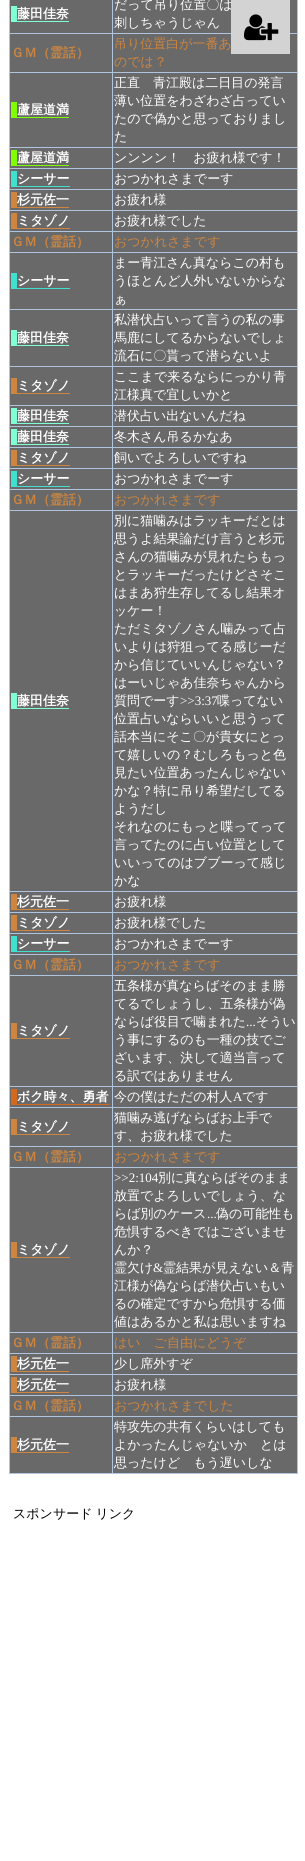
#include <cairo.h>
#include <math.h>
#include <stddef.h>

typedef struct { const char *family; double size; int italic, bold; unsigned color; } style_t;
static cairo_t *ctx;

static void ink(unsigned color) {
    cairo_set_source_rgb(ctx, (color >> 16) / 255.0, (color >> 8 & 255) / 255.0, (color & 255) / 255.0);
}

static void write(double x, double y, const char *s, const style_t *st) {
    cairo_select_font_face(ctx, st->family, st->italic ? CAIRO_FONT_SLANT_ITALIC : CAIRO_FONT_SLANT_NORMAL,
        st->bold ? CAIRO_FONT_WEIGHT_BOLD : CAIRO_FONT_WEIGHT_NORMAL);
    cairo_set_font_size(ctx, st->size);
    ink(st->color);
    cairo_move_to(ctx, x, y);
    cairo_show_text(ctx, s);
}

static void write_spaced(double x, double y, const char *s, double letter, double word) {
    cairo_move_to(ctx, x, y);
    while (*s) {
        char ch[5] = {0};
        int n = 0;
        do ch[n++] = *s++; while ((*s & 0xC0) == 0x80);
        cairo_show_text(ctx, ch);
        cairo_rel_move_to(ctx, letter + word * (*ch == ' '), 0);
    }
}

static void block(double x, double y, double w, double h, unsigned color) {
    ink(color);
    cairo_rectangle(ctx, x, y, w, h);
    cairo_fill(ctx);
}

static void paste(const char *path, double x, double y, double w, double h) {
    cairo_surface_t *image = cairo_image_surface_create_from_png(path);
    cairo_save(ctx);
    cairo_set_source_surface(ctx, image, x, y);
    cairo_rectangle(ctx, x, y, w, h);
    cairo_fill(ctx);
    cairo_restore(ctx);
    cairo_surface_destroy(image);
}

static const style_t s1 = {"WenQuanYi Zen Hei", 13, 0, 1, 0xffffff};
static const style_t s2 = {"WenQuanYi Zen Hei Medium", 13, 0, 0, 0xffffff};
static const style_t s3 = {"WenQuanYi Zen Hei", 13, 0, 1, 0xcd853f};
static const style_t s4 = {"WenQuanYi Zen Hei Medium", 13, 0, 0, 0xcd853f};
static const style_t s5 = {"Liberation Serif", 13, 0, 0, 0xffffff};

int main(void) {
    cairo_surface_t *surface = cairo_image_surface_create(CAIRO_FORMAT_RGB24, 305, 1861);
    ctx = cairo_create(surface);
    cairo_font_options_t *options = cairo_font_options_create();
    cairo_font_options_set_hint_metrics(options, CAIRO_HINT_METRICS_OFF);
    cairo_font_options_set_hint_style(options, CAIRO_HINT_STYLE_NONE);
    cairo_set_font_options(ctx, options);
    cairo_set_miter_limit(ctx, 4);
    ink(0xffffff);
    cairo_paint(ctx);
    block(10, 0, 102, 33, 0x696969);
    block(112, 0, 1, 1474, 0xb0c4de);
    block(9, 33, 104, 1, 0xb0c4de);
    block(9, 0, 1, 34, 0xb0c4de);
    write(17, 18, "藤田佳奈", &s1);
    block(11, 21, 58, 1, 0x7fffd4);
    block(11, 6, 6, 16, 0x7fffd4);
    block(113, 0, 184, 33, 0x696969);
    block(297, 0, 1, 1474, 0xb0c4de);
    block(113, 33, 185, 1, 0xb0c4de);
    write(114, 9, "だって吊り位置〇は", &s2);
    write(114, 27, "刺しちゃうじゃん", &s2);
    block(10, 34, 102, 38, 0x696969);
    block(9, 72, 289, 1, 0xb0c4de);
    block(9, 34, 1, 39, 0xb0c4de);
    write(11, 57, "ＧＭ（霊話）", &s3);
    block(113, 34, 184, 38, 0x696969);
    write(114, 48, "吊り位置白が一番あ", &s4);
    write(114, 66, "のでは？", &s4);
    block(10, 73, 102, 74, 0x696969);
    block(9, 147, 289, 1, 0xb0c4de);
    block(9, 73, 1, 75, 0xb0c4de);
    write(17, 114, "蘆屋道満", &s1);
    block(11, 117, 58, 1, 0x7fff00);
    block(11, 102, 6, 16, 0x7fff00);
    block(113, 73, 184, 74, 0x696969);
    write(114, 87, "正直　青江殿は二日目の発言", &s2);
    write(114, 105, "薄い位置をわざわざ占ってい", &s2);
    write(114, 123, "たので偽かと思っておりまし", &s2);
    write(114, 141, "た", &s2);
    block(10, 148, 102, 20, 0x696969);
    block(9, 168, 289, 1, 0xb0c4de);
    block(9, 148, 1, 21, 0xb0c4de);
    write(17, 162, "蘆屋道満", &s1);
    block(11, 165, 58, 1, 0x7fff00);
    block(11, 150, 6, 16, 0x7fff00);
    block(113, 148, 184, 20, 0x696969);
    write(114, 162, "ンンンン！　お疲れ様です！", &s2);
    block(10, 169, 102, 20, 0x696969);
    block(9, 189, 289, 1, 0xb0c4de);
    block(9, 169, 1, 21, 0xb0c4de);
    write(17, 183, "シーサー", &s1);
    block(11, 186, 59, 1, 0x40e0d0);
    block(11, 171, 6, 16, 0x40e0d0);
    block(113, 169, 184, 20, 0x696969);
    write(114, 183, "おつかれさまでーす", &s2);
    block(10, 190, 102, 20, 0x696969);
    block(9, 210, 289, 1, 0xb0c4de);
    block(9, 190, 1, 21, 0xb0c4de);
    block(11, 207, 58, 1, 0xcd853f);
    block(11, 192, 6, 16, 0xcd853f);
    write(17, 204, "杉元佐一", &s1);
    block(113, 190, 184, 20, 0x696969);
    write(114, 204, "お疲れ様", &s2);
    block(10, 211, 102, 20, 0x696969);
    block(9, 231, 289, 1, 0xb0c4de);
    block(9, 211, 1, 21, 0xb0c4de);
    write(17, 225, "ミタゾノ", &s1);
    block(11, 228, 59, 1, 0xcd853f);
    block(11, 213, 6, 16, 0xcd853f);
    block(113, 211, 184, 20, 0x696969);
    write(114, 225, "お疲れ様でした", &s2);
    block(10, 232, 102, 20, 0x696969);
    block(9, 252, 289, 1, 0xb0c4de);
    block(9, 232, 1, 21, 0xb0c4de);
    write(11, 246, "ＧＭ（霊話）", &s3);
    block(113, 232, 184, 20, 0x696969);
    write(114, 246, "おつかれさまです", &s4);
    block(10, 253, 102, 56, 0x696969);
    block(9, 309, 289, 1, 0xb0c4de);
    block(9, 253, 1, 57, 0xb0c4de);
    write(17, 285, "シーサー", &s1);
    block(11, 288, 59, 1, 0x40e0d0);
    block(11, 273, 6, 16, 0x40e0d0);
    block(113, 253, 184, 56, 0x696969);
    write(114, 267, "まー青江さん真ならこの村も", &s2);
    write(114, 285, "うほとんど人外いないからな", &s2);
    write(114, 303, "ぁ", &s2);
    block(10, 310, 102, 56, 0x696969);
    block(9, 366, 289, 1, 0xb0c4de);
    block(9, 310, 1, 57, 0xb0c4de);
    write(17, 342, "藤田佳奈", &s1);
    block(11, 345, 58, 1, 0x7fffd4);
    block(11, 330, 6, 16, 0x7fffd4);
    block(113, 310, 184, 56, 0x696969);
    write(114, 324, "私潜伏占いって言うの私の事", &s2);
    write(114, 342, "馬鹿にしてるからないでしょ", &s2);
    write(114, 360, "流石に〇貰って潜らないよ", &s2);
    block(10, 367, 102, 38, 0x696969);
    block(9, 405, 289, 1, 0xb0c4de);
    block(9, 367, 1, 39, 0xb0c4de);
    write(17, 390, "ミタゾノ", &s1);
    block(11, 393, 59, 1, 0xcd853f);
    block(11, 378, 6, 16, 0xcd853f);
    block(113, 367, 184, 38, 0x696969);
    write(114, 381, "ここまで来るならにっかり青", &s2);
    write(114, 399, "江様真で宜しいかと", &s2);
    block(10, 406, 102, 20, 0x696969);
    block(9, 426, 289, 1, 0xb0c4de);
    block(9, 406, 1, 21, 0xb0c4de);
    write(17, 420, "藤田佳奈", &s1);
    block(11, 423, 58, 1, 0x7fffd4);
    block(11, 408, 6, 16, 0x7fffd4);
    block(113, 406, 184, 20, 0x696969);
    write(114, 420, "潜伏占い出ないんだね", &s2);
    block(10, 427, 102, 20, 0x696969);
    block(9, 447, 289, 1, 0xb0c4de);
    block(9, 427, 1, 21, 0xb0c4de);
    write(17, 441, "藤田佳奈", &s1);
    block(11, 444, 58, 1, 0x7fffd4);
    block(11, 429, 6, 16, 0x7fffd4);
    block(113, 427, 184, 20, 0x696969);
    write(114, 441, "冬木さん吊るかなあ", &s2);
    block(10, 448, 102, 20, 0x696969);
    block(9, 468, 289, 1, 0xb0c4de);
    block(9, 448, 1, 21, 0xb0c4de);
    write(17, 462, "ミタゾノ", &s1);
    block(11, 465, 59, 1, 0xcd853f);
    block(11, 450, 6, 16, 0xcd853f);
    block(113, 448, 184, 20, 0x696969);
    write(114, 462, "飼いでよろしいですね", &s2);
    block(10, 469, 102, 20, 0x696969);
    block(9, 489, 289, 1, 0xb0c4de);
    block(9, 469, 1, 21, 0xb0c4de);
    write(17, 483, "シーサー", &s1);
    block(11, 486, 59, 1, 0x40e0d0);
    block(11, 471, 6, 16, 0x40e0d0);
    block(113, 469, 184, 20, 0x696969);
    write(114, 483, "おつかれさまでーす", &s2);
    block(10, 490, 102, 20, 0x696969);
    block(9, 510, 289, 1, 0xb0c4de);
    block(9, 490, 1, 21, 0xb0c4de);
    write(11, 504, "ＧＭ（霊話）", &s3);
    block(113, 490, 184, 20, 0x696969);
    write(114, 504, "おつかれさまです", &s4);
    block(10, 511, 102, 380, 0x696969);
    block(9, 891, 289, 1, 0xb0c4de);
    block(9, 511, 1, 381, 0xb0c4de);
    write(17, 705, "藤田佳奈", &s1);
    block(11, 708, 58, 1, 0x7fffd4);
    block(11, 693, 6, 16, 0x7fffd4);
    block(113, 511, 184, 380, 0x696969);
    write(114, 525, "別に猫噛みはラッキーだとは", &s2);
    write(114, 543, "思うよ結果論だけ言うと杉元", &s2);
    write(114, 561, "さんの猫噛みが見れたらもっ", &s2);
    write(114, 579, "とラッキーだったけどさそこ", &s2);
    write(114, 597, "はまあ狩生存してるし結果オ", &s2);
    write(114, 615, "ッケー！", &s2);
    write(114, 633, "ただミタゾノさん噛みって占", &s2);
    write(114, 651, "いよりは狩狙ってる感じーだ", &s2);
    write(114, 669, "から信じていいんじゃない？", &s2);
    write(114, 687, "はーいじゃあ佳奈ちゃんから", &s2);
    write(114, 705, "質問でーす", &s2);
    write(180, 705, ">>3:37", &s5);
    write(217, 705, "喋ってない", &s2);
    write(114, 723, "位置占いならいいと思うって", &s2);
    write(114, 741, "話本当にそこ〇が貴女にとっ", &s2);
    write(114, 759, "て嬉しいの？むしろもっと色", &s2);
    write(114, 777, "見たい位置あったんじゃない", &s2);
    write(114, 795, "かな？特に吊り希望だしてる", &s2);
    write(114, 813, "ようだし", &s2);
    write(114, 831, "それなのにもっと喋ってって", &s2);
    write(114, 849, "言ってたのに占い位置として", &s2);
    write(114, 867, "いいってのはブブーって感じ", &s2);
    write(114, 885, "かな", &s2);
    block(10, 892, 102, 20, 0x696969);
    block(9, 912, 289, 1, 0xb0c4de);
    block(9, 892, 1, 21, 0xb0c4de);
    block(11, 909, 58, 1, 0xcd853f);
    block(11, 894, 6, 16, 0xcd853f);
    write(17, 906, "杉元佐一", &s1);
    block(113, 892, 184, 20, 0x696969);
    write(114, 906, "お疲れ様", &s2);
    block(10, 913, 102, 20, 0x696969);
    block(9, 933, 289, 1, 0xb0c4de);
    block(9, 913, 1, 21, 0xb0c4de);
    write(17, 927, "ミタゾノ", &s1);
    block(11, 930, 59, 1, 0xcd853f);
    block(11, 915, 6, 16, 0xcd853f);
    block(113, 913, 184, 20, 0x696969);
    write(114, 927, "お疲れ様でした", &s2);
    block(10, 934, 102, 20, 0x696969);
    block(9, 954, 289, 1, 0xb0c4de);
    block(9, 934, 1, 21, 0xb0c4de);
    write(17, 948, "シーサー", &s1);
    block(11, 951, 59, 1, 0x40e0d0);
    block(11, 936, 6, 16, 0x40e0d0);
    block(113, 934, 184, 20, 0x696969);
    write(114, 948, "おつかれさまでーす", &s2);
    block(10, 955, 102, 20, 0x696969);
    block(9, 975, 289, 1, 0xb0c4de);
    block(9, 955, 1, 21, 0xb0c4de);
    write(11, 969, "ＧＭ（霊話）", &s3);
    block(113, 955, 184, 20, 0x696969);
    write(114, 969, "おつかれさまです", &s4);
    block(10, 976, 102, 110, 0x696969);
    block(9, 1086, 289, 1, 0xb0c4de);
    block(9, 976, 1, 111, 0xb0c4de);
    write(17, 1035, "ミタゾノ", &s1);
    block(11, 1038, 59, 1, 0xcd853f);
    block(11, 1023, 6, 16, 0xcd853f);
    block(113, 976, 184, 110, 0x696969);
    write(114, 990, "五条様が真ならばそのまま勝", &s2);
    write(114, 1008, "てるでしょうし、五条様が偽", &s2);
    write(114, 1026, "ならば役目で噛まれた", &s2);
    write(246, 1026, "...", &s5);
    write(256, 1026, "そうい", &s2);
    write(114, 1044, "う事にするのも一種の技でご", &s2);
    write(114, 1062, "ざいます、決して適当言って", &s2);
    write(114, 1080, "る訳ではありません", &s2);
    block(10, 1087, 102, 20, 0x696969);
    block(9, 1107, 289, 1, 0xb0c4de);
    block(9, 1087, 1, 21, 0xb0c4de);
    write(17, 1101, "ボク時々、勇者", &s1);
    block(11, 1104, 98, 1, 0xd2691e);
    block(11, 1089, 6, 16, 0xd2691e);
    block(113, 1087, 184, 20, 0x696969);
    write(114, 1101, "今の僕はただの村人", &s2);
    write(233, 1101, "A", &s5);
    write(242, 1101, "です", &s2);
    block(10, 1108, 102, 38, 0x696969);
    block(9, 1146, 289, 1, 0xb0c4de);
    block(9, 1108, 1, 39, 0xb0c4de);
    write(17, 1131, "ミタゾノ", &s1);
    block(11, 1134, 59, 1, 0xcd853f);
    block(11, 1119, 6, 16, 0xcd853f);
    block(113, 1108, 184, 38, 0x696969);
    write(114, 1122, "猫噛み逃げならばお上手で", &s2);
    write(114, 1140, "す、お疲れ様でした", &s2);
    block(10, 1147, 102, 20, 0x696969);
    block(9, 1167, 289, 1, 0xb0c4de);
    block(9, 1147, 1, 21, 0xb0c4de);
    write(11, 1161, "ＧＭ（霊話）", &s3);
    block(113, 1147, 184, 20, 0x696969);
    write(114, 1161, "おつかれさまです", &s4);
    block(10, 1168, 102, 164, 0x696969);
    block(9, 1332, 289, 1, 0xb0c4de);
    block(9, 1168, 1, 165, 0xb0c4de);
    write(17, 1254, "ミタゾノ", &s1);
    block(11, 1257, 59, 1, 0xcd853f);
    block(11, 1242, 6, 16, 0xcd853f);
    block(113, 1168, 184, 164, 0x696969);
    write(114, 1182, ">>2:104", &s5);
    write(158, 1182, "別に真ならばそのまま", &s2);
    write(114, 1200, "放置でよろしいでしょう、な", &s2);
    write(114, 1218, "らば別のケース", &s2);
    write(207, 1218, "...", &s5);
    write(216, 1218, "偽の可能性も", &s2);
    write(114, 1236, "危惧するべきではございませ", &s2);
    write(114, 1254, "んか？", &s2);
    write(114, 1272, "霊欠け", &s2);
    write(153, 1272, "&", &s5);
    write(163, 1272, "霊結果が見えない＆青", &s2);
    write(114, 1290, "江様が偽ならば潜伏占いもい", &s2);
    write(114, 1308, "るの確定ですから危惧する価", &s2);
    write(114, 1326, "値はあるかと私は思いますね", &s2);
    block(10, 1333, 102, 20, 0x696969);
    block(9, 1353, 289, 1, 0xb0c4de);
    block(9, 1333, 1, 21, 0xb0c4de);
    write(11, 1347, "ＧＭ（霊話）", &s3);
    block(113, 1333, 184, 20, 0x696969);
    write(114, 1347, "はい　ご自由にどうぞ", &s4);
    block(10, 1354, 102, 20, 0x696969);
    block(9, 1374, 289, 1, 0xb0c4de);
    block(9, 1354, 1, 21, 0xb0c4de);
    block(11, 1371, 58, 1, 0xcd853f);
    block(11, 1356, 6, 16, 0xcd853f);
    write(17, 1368, "杉元佐一", &s1);
    block(113, 1354, 184, 20, 0x696969);
    write(114, 1368, "少し席外すぞ", &s2);
    block(10, 1375, 102, 20, 0x696969);
    block(9, 1395, 289, 1, 0xb0c4de);
    block(9, 1375, 1, 21, 0xb0c4de);
    block(11, 1392, 58, 1, 0xcd853f);
    block(11, 1377, 6, 16, 0xcd853f);
    write(17, 1389, "杉元佐一", &s1);
    block(113, 1375, 184, 20, 0x696969);
    write(114, 1389, "お疲れ様", &s2);
    block(10, 1396, 102, 20, 0x696969);
    block(9, 1416, 289, 1, 0xb0c4de);
    block(9, 1396, 1, 21, 0xb0c4de);
    write(11, 1410, "ＧＭ（霊話）", &s3);
    block(113, 1396, 184, 20, 0x696969);
    write(114, 1410, "おつかれさまでした", &s4);
    block(10, 1417, 102, 56, 0x696969);
    block(9, 1473, 289, 1, 0xb0c4de);
    block(9, 1417, 1, 57, 0xb0c4de);
    block(11, 1452, 58, 1, 0xcd853f);
    block(11, 1437, 6, 16, 0xcd853f);
    write(17, 1449, "杉元佐一", &s1);
    block(113, 1417, 184, 56, 0x696969);
    write(114, 1431, "特攻先の共有くらいはしても", &s2);
    write(114, 1449, "よかったんじゃないか　とは", &s2);
    write(114, 1467, "思ったけど　もう遅いしな", &s2);
    ink(0x000000);
    write_spaced(13, 1518, "スポンサード リンク", 0, -1);
    block(231, 0, 59, 54, 0xd3d3d3);
    paste("pic1.png", 244, 14, 35, 27);
    cairo_surface_write_to_png(surface, "screenshot.png");
    cairo_font_options_destroy(options);
    cairo_destroy(ctx);
    cairo_surface_destroy(surface);
    return 0;
}
